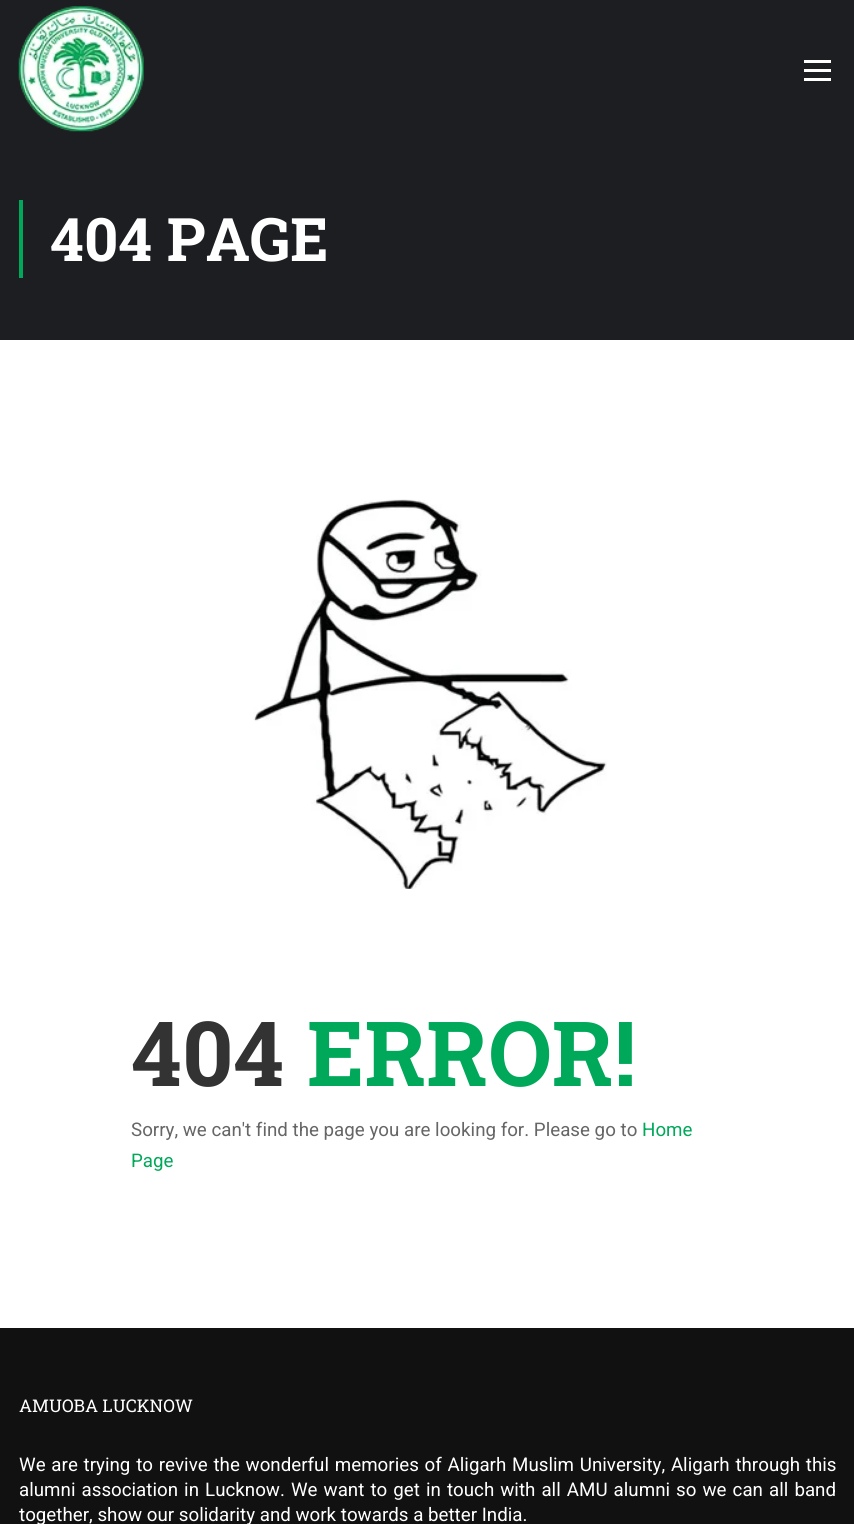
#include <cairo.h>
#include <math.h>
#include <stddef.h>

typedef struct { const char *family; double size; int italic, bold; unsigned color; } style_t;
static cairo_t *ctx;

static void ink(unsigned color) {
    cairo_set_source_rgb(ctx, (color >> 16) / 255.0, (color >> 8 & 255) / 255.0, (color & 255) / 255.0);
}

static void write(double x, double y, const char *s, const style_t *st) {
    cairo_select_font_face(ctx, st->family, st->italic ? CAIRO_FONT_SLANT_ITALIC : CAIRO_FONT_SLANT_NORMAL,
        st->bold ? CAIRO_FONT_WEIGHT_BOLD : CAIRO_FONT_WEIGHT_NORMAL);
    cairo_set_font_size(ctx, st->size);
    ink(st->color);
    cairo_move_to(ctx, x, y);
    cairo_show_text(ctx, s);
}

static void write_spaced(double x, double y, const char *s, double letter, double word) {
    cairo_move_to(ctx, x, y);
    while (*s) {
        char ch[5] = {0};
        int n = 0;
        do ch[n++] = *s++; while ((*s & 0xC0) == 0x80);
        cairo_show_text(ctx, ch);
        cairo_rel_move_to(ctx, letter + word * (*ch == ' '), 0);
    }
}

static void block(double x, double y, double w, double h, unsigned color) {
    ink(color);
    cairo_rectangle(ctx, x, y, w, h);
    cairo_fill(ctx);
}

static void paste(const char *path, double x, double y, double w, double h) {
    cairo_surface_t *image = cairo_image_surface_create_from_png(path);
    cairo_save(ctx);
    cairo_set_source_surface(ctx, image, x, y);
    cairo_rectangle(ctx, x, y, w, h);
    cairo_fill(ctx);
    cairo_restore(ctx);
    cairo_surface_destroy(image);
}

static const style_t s1 = {"Roboto Slab", 60, 0, 1, 0xffffff};
static const style_t s2 = {"Roboto Slab", 90, 0, 1, 0x333333};
static const style_t s3 = {"Roboto Slab", 90, 0, 1, 0x00a85a};
static const style_t s4 = {"Roboto", 18.75, 0, 0, 0x666666};
static const style_t s5 = {"Roboto", 18.75, 0, 0, 0x00a85a};
static const style_t s6 = {"Roboto Slab", 17.5, 0, 0, 0xffffff};
static const style_t s7 = {"Roboto", 18.75, 0, 0, 0xffffff};

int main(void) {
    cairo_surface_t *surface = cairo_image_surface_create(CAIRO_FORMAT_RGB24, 854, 1524);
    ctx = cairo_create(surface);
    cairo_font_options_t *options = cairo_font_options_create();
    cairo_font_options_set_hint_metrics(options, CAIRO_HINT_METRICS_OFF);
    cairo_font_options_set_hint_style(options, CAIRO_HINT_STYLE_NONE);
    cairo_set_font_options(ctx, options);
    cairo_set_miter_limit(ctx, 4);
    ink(0xffffff);
    cairo_paint(ctx);
    block(0, 0, 854, 340, 0x1c1e22);
    paste("pic1.png", 18, 6, 126, 126);
    block(804, 60, 27, 3, 0xffffff);
    block(804, 69, 27, 3, 0xffffff);
    block(804, 78, 27, 3, 0xffffff);
    block(19, 200, 4, 78, 0x00a85a);
    write(50, 261, "404 PAGE", &s1);
    paste("pic2.png", 253, 499, 354, 390);
    write(131, 1086, "404", &s2);
    write(307, 1086, "ERROR!", &s3);
    write(131, 1136, "Sorry, we can't find the page you are looking for. Please go to", &s4);
    write(642, 1136, "Home", &s5);
    write(131, 1167, "Page", &s5);
    block(0, 1328, 854, 196, 0x111111);
    write(19, 1412, "AMUOBA LUCKNOW", &s6);
    cairo_select_font_face(ctx, "Roboto", CAIRO_FONT_SLANT_NORMAL, CAIRO_FONT_WEIGHT_NORMAL);
    cairo_set_font_size(ctx, 18.75);
    write_spaced(19, 1471, "We are trying to revive the wonderful memories of Aligarh Muslim University, Aligarh through this", 0, 1.1);
    write_spaced(19, 1496, "alumni association in Lucknow. We want to get in touch with all AMU alumni so we can all band", 0, 1.4);
    write(19, 1521, "together, show our solidarity and work towards a better India.", &s7);
    cairo_surface_write_to_png(surface, "screenshot.png");
    cairo_font_options_destroy(options);
    cairo_destroy(ctx);
    cairo_surface_destroy(surface);
    return 0;
}
